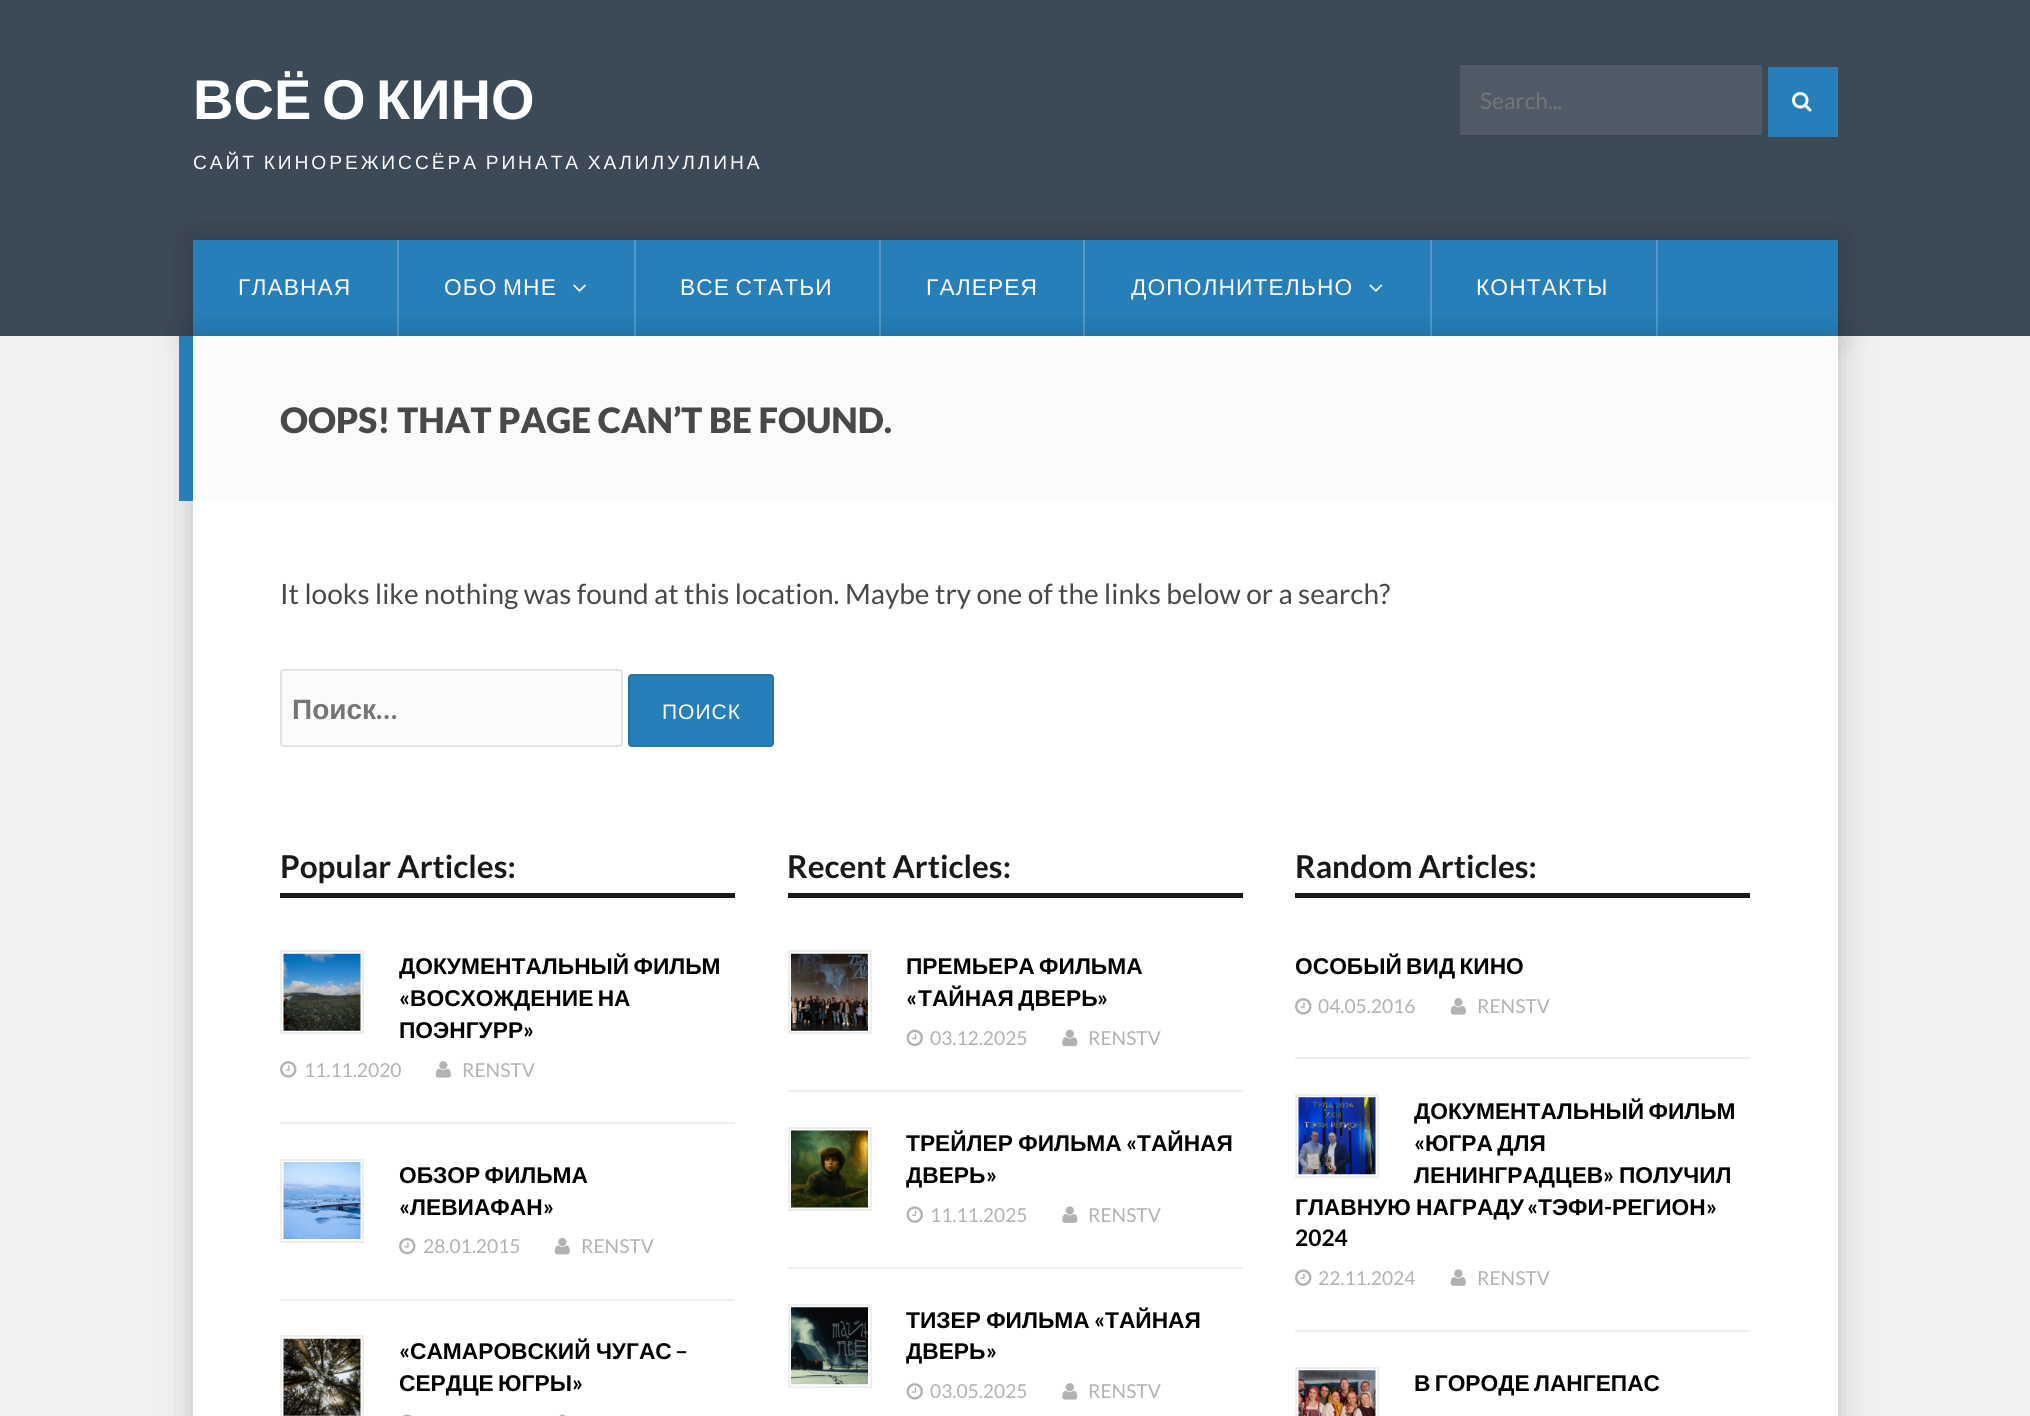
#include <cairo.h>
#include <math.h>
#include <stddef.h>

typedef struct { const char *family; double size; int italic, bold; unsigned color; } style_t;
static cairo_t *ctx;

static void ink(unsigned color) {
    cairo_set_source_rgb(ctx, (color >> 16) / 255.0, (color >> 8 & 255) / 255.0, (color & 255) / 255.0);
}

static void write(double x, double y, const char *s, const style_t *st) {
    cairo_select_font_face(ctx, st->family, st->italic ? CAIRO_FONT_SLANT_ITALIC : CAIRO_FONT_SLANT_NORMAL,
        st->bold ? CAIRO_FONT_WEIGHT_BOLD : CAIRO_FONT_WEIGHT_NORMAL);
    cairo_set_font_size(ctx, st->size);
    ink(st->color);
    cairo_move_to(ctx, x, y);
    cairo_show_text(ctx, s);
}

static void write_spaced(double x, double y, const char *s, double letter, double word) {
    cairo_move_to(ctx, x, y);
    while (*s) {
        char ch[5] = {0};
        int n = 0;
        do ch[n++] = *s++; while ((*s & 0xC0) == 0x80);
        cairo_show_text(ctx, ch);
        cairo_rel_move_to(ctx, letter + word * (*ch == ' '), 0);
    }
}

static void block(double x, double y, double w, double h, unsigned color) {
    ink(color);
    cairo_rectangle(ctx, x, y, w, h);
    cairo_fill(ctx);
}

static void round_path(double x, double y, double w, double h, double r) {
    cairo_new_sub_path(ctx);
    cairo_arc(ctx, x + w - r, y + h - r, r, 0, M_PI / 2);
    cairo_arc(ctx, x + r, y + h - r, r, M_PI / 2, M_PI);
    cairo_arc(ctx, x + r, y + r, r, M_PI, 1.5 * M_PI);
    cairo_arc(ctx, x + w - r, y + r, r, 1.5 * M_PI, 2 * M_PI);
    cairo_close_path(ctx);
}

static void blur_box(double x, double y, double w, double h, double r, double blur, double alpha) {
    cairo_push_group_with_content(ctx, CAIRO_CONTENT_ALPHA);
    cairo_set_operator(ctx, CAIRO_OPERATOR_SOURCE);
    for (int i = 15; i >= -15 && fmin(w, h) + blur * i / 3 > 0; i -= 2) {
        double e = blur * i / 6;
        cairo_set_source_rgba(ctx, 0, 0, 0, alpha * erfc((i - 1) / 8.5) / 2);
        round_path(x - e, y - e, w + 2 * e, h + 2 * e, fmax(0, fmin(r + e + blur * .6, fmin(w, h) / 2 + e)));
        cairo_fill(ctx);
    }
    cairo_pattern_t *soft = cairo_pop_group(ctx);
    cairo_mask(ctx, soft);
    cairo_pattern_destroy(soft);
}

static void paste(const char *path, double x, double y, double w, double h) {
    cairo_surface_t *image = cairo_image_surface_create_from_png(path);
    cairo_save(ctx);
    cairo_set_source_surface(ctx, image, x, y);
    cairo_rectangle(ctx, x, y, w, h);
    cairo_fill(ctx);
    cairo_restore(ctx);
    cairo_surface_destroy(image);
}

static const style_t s1 = {"Lato", 22.75, 0, 0, 0x757575};
static const style_t s2 = {"Lato Black", 35, 0, 0, 0x494848};
static const style_t s3 = {"Lato", 28, 0, 0, 0x494848};
static const style_t s4 = {"Liberation Sans", 28, 0, 1, 0x757575};
static const style_t s5 = {"Lato", 28, 0, 1, 0x757575};
static const style_t s6 = {"Lato", 31.5, 0, 1, 0x191919};
static const style_t s7 = {"Lato", 22.75, 0, 1, 0x000000};
static const style_t s8 = {"Liberation Sans", 22.75, 0, 1, 0x000000};
static const style_t s9 = {"Lato", 19.25, 0, 0, 0xb2b2b3};

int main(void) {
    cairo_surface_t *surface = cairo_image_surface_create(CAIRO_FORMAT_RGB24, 2030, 1416);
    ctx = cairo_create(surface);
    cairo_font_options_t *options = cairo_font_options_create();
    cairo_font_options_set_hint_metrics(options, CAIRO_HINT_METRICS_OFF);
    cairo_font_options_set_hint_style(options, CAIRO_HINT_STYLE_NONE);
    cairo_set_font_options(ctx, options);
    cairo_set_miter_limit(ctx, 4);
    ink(0xf1f1f1);
    cairo_paint(ctx);
    block(0, 0, 2030, 336, 0x3c4956);
    cairo_select_font_face(ctx, "Liberation Sans", CAIRO_FONT_SLANT_NORMAL, CAIRO_FONT_WEIGHT_BOLD);
    cairo_set_font_size(ctx, 56);
    ink(0xffffff);
    write_spaced(193, 119, "ВСЁ О КИНО", 0, -5);
    cairo_select_font_face(ctx, "Liberation Sans", CAIRO_FONT_SLANT_NORMAL, CAIRO_FONT_WEIGHT_NORMAL);
    cairo_set_font_size(ctx, 19.25);
    write_spaced(193, 169, "САЙТ КИНОРЕЖИССЁРА РИНАТА ХАЛИЛУЛЛИНА", 2.9, -1.5);
    block(1460, 65, 302, 70, 0x505b67);
    write(1480, 109, "Search...", &s1);
    block(1768, 67, 70, 70, 0x277fba);
    paste("pic1.png", 1792, 92, 20, 20);
    ink(0x000000);
    blur_box(193, 240, 1645, 96, 0, 16.5, 0.2);
    block(193, 240, 1645, 96, 0x277fba);
    block(397, 240, 2, 96, 0x5299c8);
    cairo_select_font_face(ctx, "Liberation Sans", CAIRO_FONT_SLANT_NORMAL, CAIRO_FONT_WEIGHT_NORMAL);
    ink(0xffffff);
    write_spaced(238, 295, "ГЛАВНАЯ", 1.1, 0);
    block(634, 240, 2, 96, 0x5299c8);
    ink(0xffffff);
    write_spaced(444, 295, "ОБО МНЕ", 1.1, -2);
    paste("pic2.png", 573, 284, 13, 8);
    block(879, 240, 2, 96, 0x5299c8);
    ink(0xffffff);
    write_spaced(680, 295, "ВСЕ СТАТЬИ", 1.1, -2);
    block(1083, 240, 2, 96, 0x5299c8);
    ink(0xffffff);
    write_spaced(926, 295, "ГАЛЕРЕЯ", 1.1, 0);
    block(1430, 240, 2, 96, 0x5299c8);
    ink(0xffffff);
    write_spaced(1131, 295, "ДОПОЛНИТЕЛЬНО", 1.1, 0);
    paste("pic3.png", 1369, 284, 14, 8);
    block(1656, 240, 2, 96, 0x5299c8);
    ink(0xffffff);
    write_spaced(1476, 295, "КОНТАКТЫ", 1.1, 0);
    ink(0x000000);
    blur_box(193, 336, 1645, 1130, 0, 16.5, 0.2);
    block(193, 501, 1645, 915, 0xffffff);
    block(193, 336, 1645, 165, 0xfbfbfc);
    block(179, 336, 14, 165, 0x277fba);
    write(280, 433, "OOPS! THAT PAGE CAN’T BE FOUND.", &s2);
    write(280, 604, "It looks like nothing was found at this location. Maybe try one of the links below or a search?", &s3);
    ink(0xfbfbfc);
    round_path(281, 670, 341, 76, 3);
    cairo_fill_preserve(ctx);
    ink(0xe2e2e3);
    cairo_stroke(ctx);
    write(292, 719, "Поиск", &s4);
    write(376, 719, "…", &s5);
    ink(0x277fba);
    round_path(628, 674, 146, 73, 4);
    cairo_fill(ctx);
    round_path(629, 675, 144, 71, 3);
    cairo_set_source_rgba(ctx, 0, 0, 0, 0.1);
    cairo_stroke(ctx);
    cairo_select_font_face(ctx, "Liberation Sans", CAIRO_FONT_SLANT_NORMAL, CAIRO_FONT_WEIGHT_NORMAL);
    cairo_set_font_size(ctx, 21);
    ink(0xffffff);
    write_spaced(662, 719, "ПОИСК", 1, 0);
    block(280, 893, 455, 5, 0x191919);
    write(280, 878, "Popular Articles:", &s6);
    block(280, 1122, 455, 2, 0xeeeeee);
    cairo_rectangle(ctx, 281, 951, 82, 82);
    cairo_stroke(ctx);
    paste("pic4.png", 283, 953, 78, 78);
    cairo_select_font_face(ctx, "Liberation Sans", CAIRO_FONT_SLANT_NORMAL, CAIRO_FONT_WEIGHT_BOLD);
    cairo_set_font_size(ctx, 22.75);
    ink(0x000000);
    write_spaced(399, 974, "ДОКУМЕНТАЛЬНЫЙ ФИЛЬМ", 0, -2);
    write(399, 1006, "«", &s7);
    cairo_select_font_face(ctx, "Liberation Sans", CAIRO_FONT_SLANT_NORMAL, CAIRO_FONT_WEIGHT_BOLD);
    write_spaced(410, 1006, "ВОСХОЖДЕНИЕ НА", 0, -2);
    write(399, 1038, "ПОЭНГУРР", &s8);
    write(523, 1038, "»", &s7);
    paste("pic5.png", 280, 1061, 17, 17);
    write(304, 1077, "11.11.2020", &s9);
    paste("pic6.png", 435, 1061, 16, 17);
    write(462, 1077, "RENSTV", &s9);
    block(280, 1299, 455, 2, 0xeeeeee);
    cairo_rectangle(ctx, 281, 1160, 82, 82);
    cairo_stroke(ctx);
    paste("pic7.png", 283, 1162, 78, 77);
    cairo_select_font_face(ctx, "Liberation Sans", CAIRO_FONT_SLANT_NORMAL, CAIRO_FONT_WEIGHT_BOLD);
    cairo_set_font_size(ctx, 22.75);
    ink(0x000000);
    write_spaced(399, 1183, "ОБЗОР ФИЛЬМА", 0, -2);
    write(399, 1215, "«", &s7);
    write(410, 1215, "ЛЕВИАФАН", &s8);
    write(543, 1215, "»", &s7);
    paste("pic8.png", 399, 1237, 17, 18);
    write(423, 1253, "28.01.2015", &s9);
    paste("pic9.png", 554, 1237, 16, 18);
    write(581, 1253, "RENSTV", &s9);
    cairo_rectangle(ctx, 281, 1336, 82, 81);
    ink(0xeeeeee);
    cairo_stroke(ctx);
    paste("pic10.png", 283, 1338, 78, 78);
    write(399, 1359, "«", &s7);
    cairo_select_font_face(ctx, "Liberation Sans", CAIRO_FONT_SLANT_NORMAL, CAIRO_FONT_WEIGHT_BOLD);
    write_spaced(410, 1359, "САМАРОВСКИЙ ЧУГАС", 0, -1);
    write(675, 1359, "–", &s7);
    cairo_select_font_face(ctx, "Liberation Sans", CAIRO_FONT_SLANT_NORMAL, CAIRO_FONT_WEIGHT_BOLD);
    write_spaced(399, 1391, "СЕРДЦЕ ЮГРЫ", 0, -2);
    write(572, 1391, "»", &s7);
    paste("pic11.png", 403, 1414, 9, 2);
    paste("pic12.png", 559, 1414, 7, 2);
    block(788, 893, 455, 5, 0x191919);
    write(787, 878, "Recent Articles:", &s6);
    block(788, 1090, 455, 2, 0xeeeeee);
    cairo_rectangle(ctx, 789, 951, 82, 82);
    cairo_stroke(ctx);
    paste("pic13.png", 791, 953, 77, 78);
    cairo_select_font_face(ctx, "Liberation Sans", CAIRO_FONT_SLANT_NORMAL, CAIRO_FONT_WEIGHT_BOLD);
    cairo_set_font_size(ctx, 22.75);
    ink(0x000000);
    write_spaced(906, 974, "ПРЕМЬЕРА ФИЛЬМА", 0, -2);
    write(906, 1006, "«", &s7);
    cairo_select_font_face(ctx, "Liberation Sans", CAIRO_FONT_SLANT_NORMAL, CAIRO_FONT_WEIGHT_BOLD);
    write_spaced(918, 1006, "ТАЙНАЯ ДВЕРЬ", 0, -2);
    write(1097, 1006, "»", &s7);
    paste("pic14.png", 906, 1029, 17, 18);
    write(930, 1045, "03.12.2025", &s9);
    paste("pic15.png", 1062, 1029, 16, 18);
    write(1088, 1045, "RENSTV", &s9);
    block(788, 1267, 455, 2, 0xeeeeee);
    cairo_rectangle(ctx, 789, 1128, 82, 82);
    cairo_stroke(ctx);
    paste("pic16.png", 791, 1130, 77, 78);
    cairo_select_font_face(ctx, "Liberation Sans", CAIRO_FONT_SLANT_NORMAL, CAIRO_FONT_WEIGHT_BOLD);
    cairo_set_font_size(ctx, 22.75);
    ink(0x000000);
    write_spaced(906, 1151, "ТРЕЙЛЕР ФИЛЬМА", 0, -1);
    write(1126, 1151, "«", &s7);
    write(1137, 1151, "ТАЙНАЯ", &s8);
    write(906, 1183, "ДВЕРЬ", &s8);
    write(986, 1183, "»", &s7);
    paste("pic17.png", 906, 1206, 17, 17);
    write(930, 1222, "11.11.2025", &s9);
    paste("pic18.png", 1062, 1206, 16, 17);
    write(1088, 1222, "RENSTV", &s9);
    cairo_rectangle(ctx, 789, 1305, 82, 82);
    ink(0xeeeeee);
    cairo_stroke(ctx);
    paste("pic19.png", 791, 1307, 77, 78);
    cairo_select_font_face(ctx, "Liberation Sans", CAIRO_FONT_SLANT_NORMAL, CAIRO_FONT_WEIGHT_BOLD);
    cairo_set_font_size(ctx, 22.75);
    ink(0x000000);
    write_spaced(906, 1328, "ТИЗЕР ФИЛЬМА", 0, -1);
    write(1094, 1328, "«", &s7);
    write(1105, 1328, "ТАЙНАЯ", &s8);
    write(906, 1359, "ДВЕРЬ", &s8);
    write(986, 1359, "»", &s7);
    paste("pic20.png", 906, 1383, 17, 17);
    write(930, 1398, "03.05.2025", &s9);
    paste("pic21.png", 1062, 1383, 16, 17);
    write(1088, 1398, "RENSTV", &s9);
    block(1295, 893, 455, 5, 0x191919);
    write(1295, 878, "Random Articles:", &s6);
    block(1295, 1057, 455, 2, 0xeeeeee);
    cairo_select_font_face(ctx, "Liberation Sans", CAIRO_FONT_SLANT_NORMAL, CAIRO_FONT_WEIGHT_BOLD);
    cairo_set_font_size(ctx, 22.75);
    ink(0x000000);
    write_spaced(1295, 974, "ОСОБЫЙ ВИД КИНО", 0, -2);
    paste("pic5.png", 1295, 998, 17, 17);
    write(1318, 1013, "04.05.2016", &s9);
    paste("pic6.png", 1450, 998, 16, 17);
    write(1477, 1013, "RENSTV", &s9);
    block(1295, 1330, 455, 2, 0xeeeeee);
    cairo_rectangle(ctx, 1296, 1095, 82, 82);
    cairo_stroke(ctx);
    paste("pic22.png", 1298, 1097, 78, 78);
    cairo_select_font_face(ctx, "Liberation Sans", CAIRO_FONT_SLANT_NORMAL, CAIRO_FONT_WEIGHT_BOLD);
    cairo_set_font_size(ctx, 22.75);
    ink(0x000000);
    write_spaced(1414, 1119, "ДОКУМЕНТАЛЬНЫЙ ФИЛЬМ", 0, -2);
    write(1414, 1151, "«", &s7);
    cairo_select_font_face(ctx, "Liberation Sans", CAIRO_FONT_SLANT_NORMAL, CAIRO_FONT_WEIGHT_BOLD);
    write_spaced(1425, 1151, "ЮГРА ДЛЯ", 0, -2);
    write(1414, 1183, "ЛЕНИНГРАДЦЕВ", &s8);
    write(1603, 1183, "»", &s7);
    write(1619, 1183, "ПОЛУЧИЛ", &s8);
    write_spaced(1295, 1215, "ГЛАВНУЮ НАГРАДУ", 0, -1);
    write(1527, 1215, "«", &s7);
    write(1538, 1215, "ТЭФИ", &s8);
    write(1604, 1215, "-", &s7);
    write(1612, 1215, "РЕГИОН", &s8);
    write(1706, 1215, "»", &s7);
    write(1295, 1246, "2024", &s7);
    paste("pic23.png", 1295, 1269, 17, 17);
    write(1318, 1285, "22.11.2024", &s9);
    paste("pic24.png", 1450, 1269, 16, 17);
    write(1477, 1285, "RENSTV", &s9);
    cairo_rectangle(ctx, 1296, 1368, 82, 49);
    ink(0xeeeeee);
    cairo_stroke(ctx);
    paste("pic25.png", 1298, 1370, 78, 46);
    cairo_select_font_face(ctx, "Liberation Sans", CAIRO_FONT_SLANT_NORMAL, CAIRO_FONT_WEIGHT_BOLD);
    cairo_set_font_size(ctx, 22.75);
    ink(0x000000);
    write_spaced(1414, 1391, "В ГОРОДЕ ЛАНГЕПАС", 0, -2);
    cairo_surface_write_to_png(surface, "screenshot.png");
    cairo_font_options_destroy(options);
    cairo_destroy(ctx);
    cairo_surface_destroy(surface);
    return 0;
}
